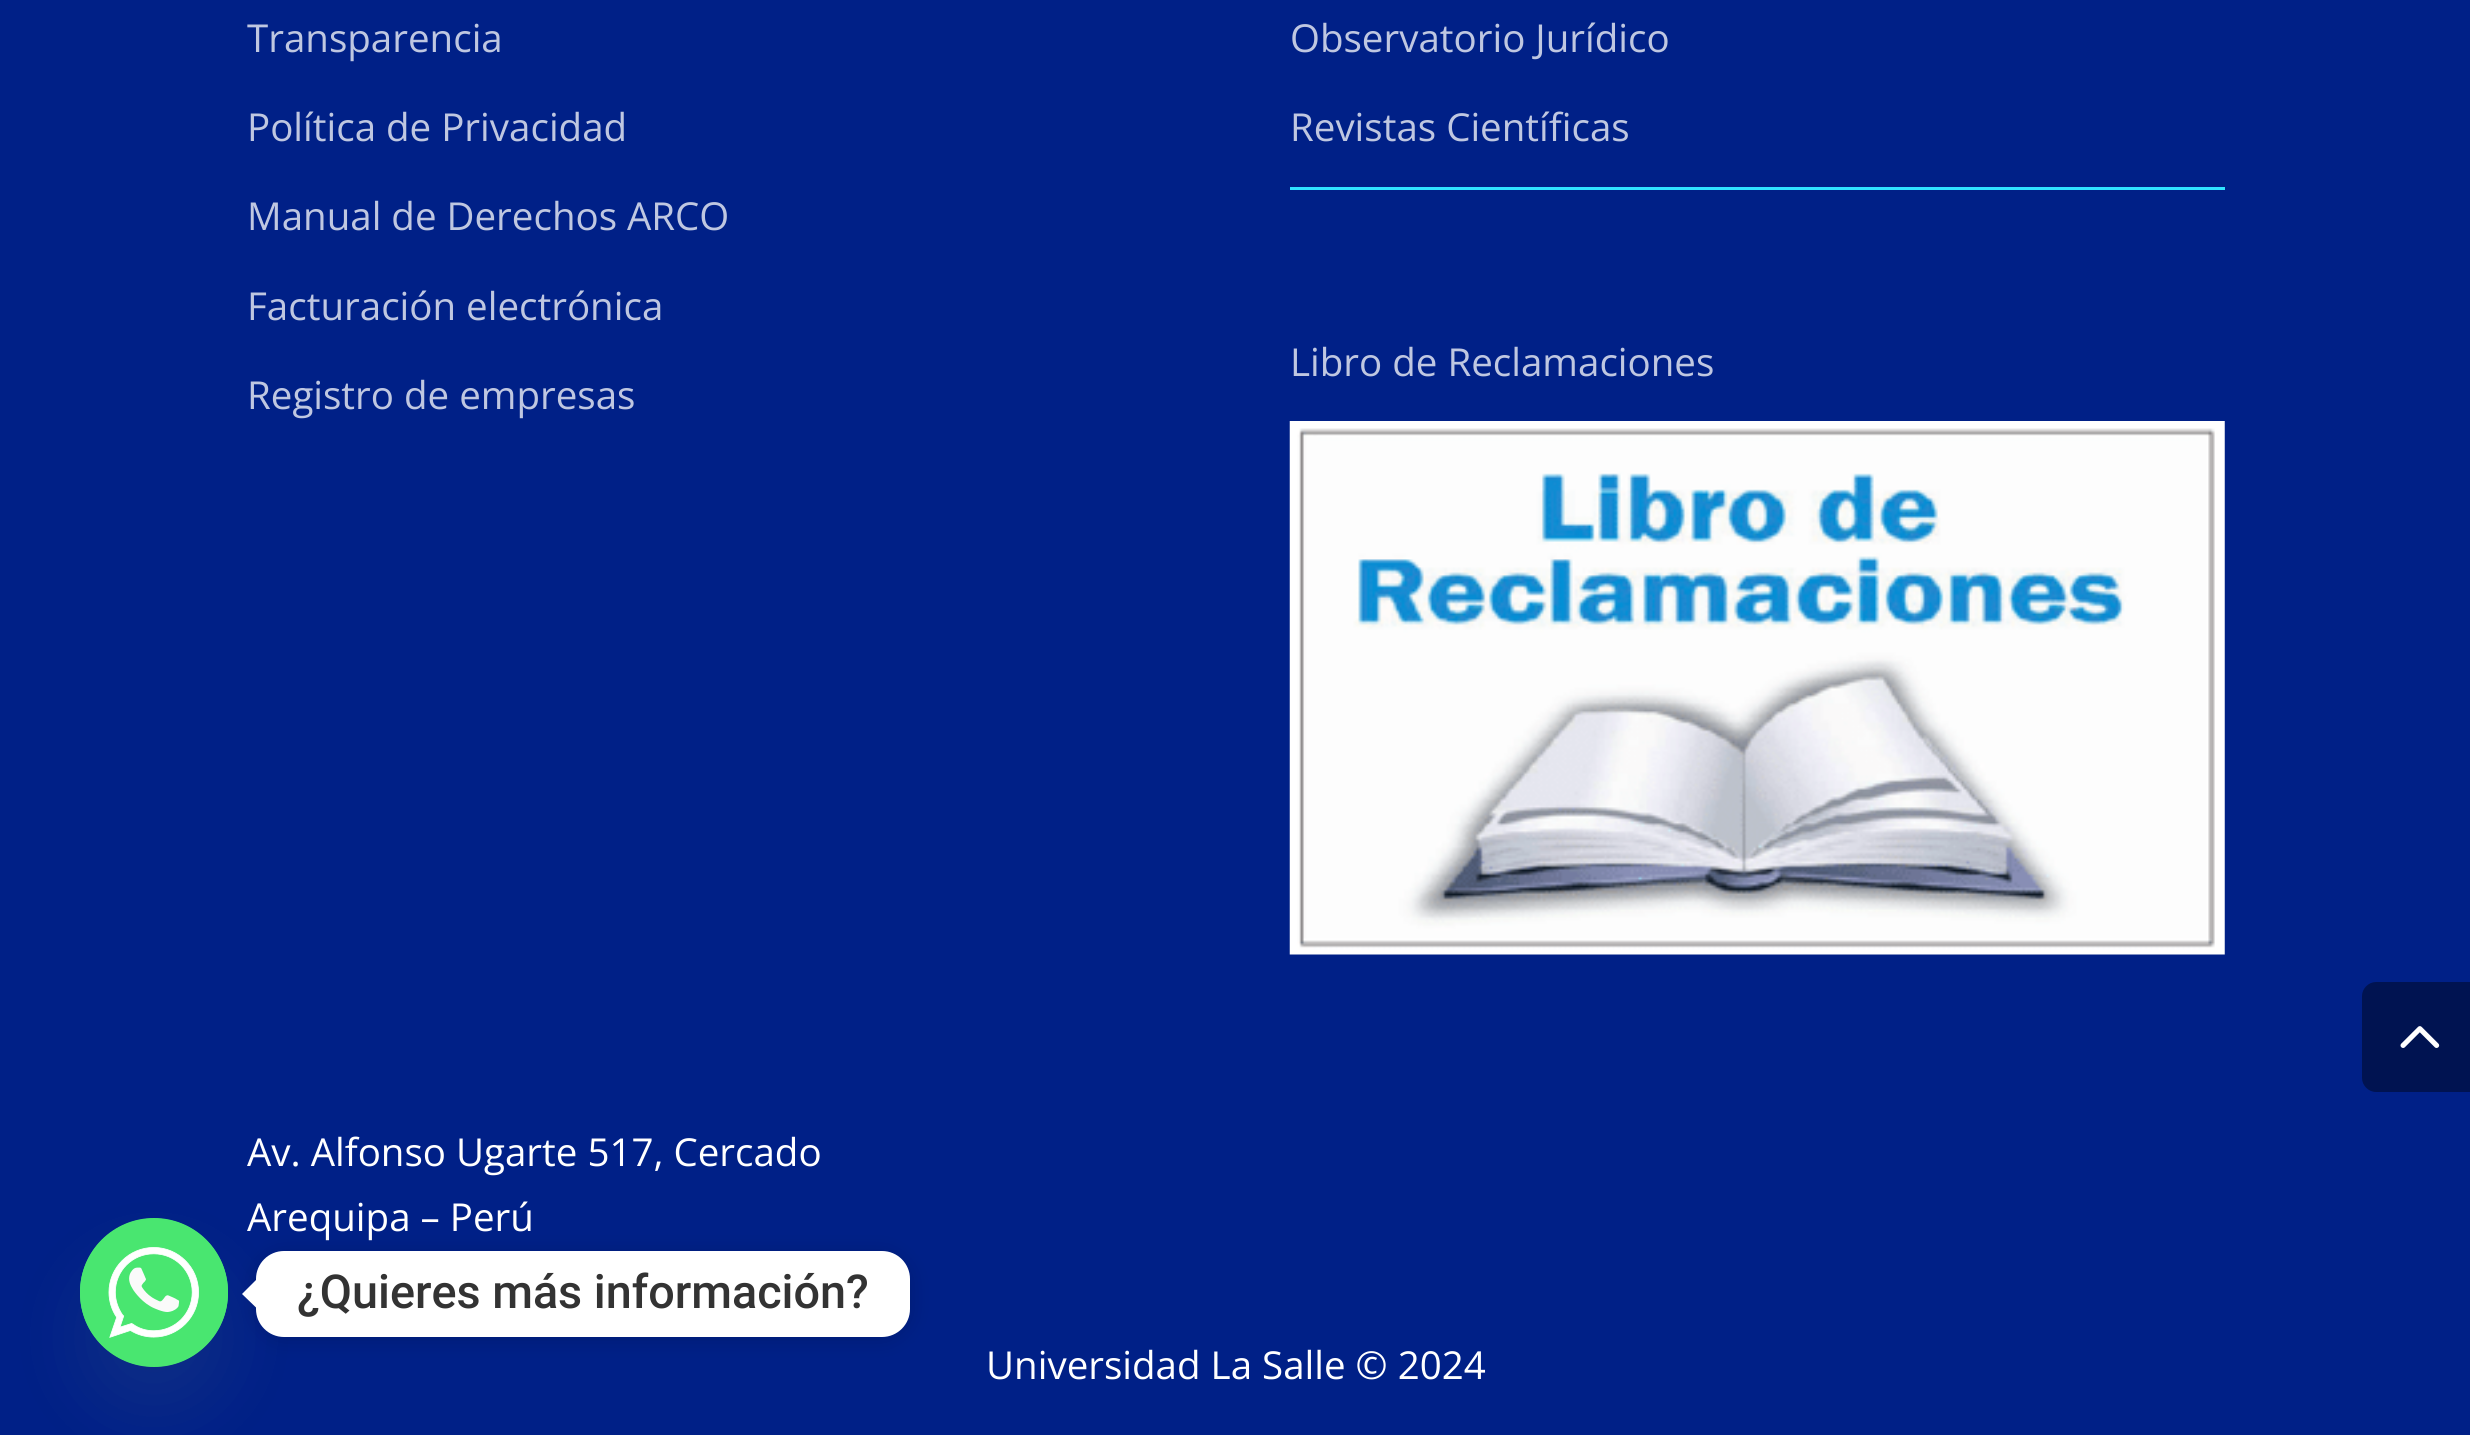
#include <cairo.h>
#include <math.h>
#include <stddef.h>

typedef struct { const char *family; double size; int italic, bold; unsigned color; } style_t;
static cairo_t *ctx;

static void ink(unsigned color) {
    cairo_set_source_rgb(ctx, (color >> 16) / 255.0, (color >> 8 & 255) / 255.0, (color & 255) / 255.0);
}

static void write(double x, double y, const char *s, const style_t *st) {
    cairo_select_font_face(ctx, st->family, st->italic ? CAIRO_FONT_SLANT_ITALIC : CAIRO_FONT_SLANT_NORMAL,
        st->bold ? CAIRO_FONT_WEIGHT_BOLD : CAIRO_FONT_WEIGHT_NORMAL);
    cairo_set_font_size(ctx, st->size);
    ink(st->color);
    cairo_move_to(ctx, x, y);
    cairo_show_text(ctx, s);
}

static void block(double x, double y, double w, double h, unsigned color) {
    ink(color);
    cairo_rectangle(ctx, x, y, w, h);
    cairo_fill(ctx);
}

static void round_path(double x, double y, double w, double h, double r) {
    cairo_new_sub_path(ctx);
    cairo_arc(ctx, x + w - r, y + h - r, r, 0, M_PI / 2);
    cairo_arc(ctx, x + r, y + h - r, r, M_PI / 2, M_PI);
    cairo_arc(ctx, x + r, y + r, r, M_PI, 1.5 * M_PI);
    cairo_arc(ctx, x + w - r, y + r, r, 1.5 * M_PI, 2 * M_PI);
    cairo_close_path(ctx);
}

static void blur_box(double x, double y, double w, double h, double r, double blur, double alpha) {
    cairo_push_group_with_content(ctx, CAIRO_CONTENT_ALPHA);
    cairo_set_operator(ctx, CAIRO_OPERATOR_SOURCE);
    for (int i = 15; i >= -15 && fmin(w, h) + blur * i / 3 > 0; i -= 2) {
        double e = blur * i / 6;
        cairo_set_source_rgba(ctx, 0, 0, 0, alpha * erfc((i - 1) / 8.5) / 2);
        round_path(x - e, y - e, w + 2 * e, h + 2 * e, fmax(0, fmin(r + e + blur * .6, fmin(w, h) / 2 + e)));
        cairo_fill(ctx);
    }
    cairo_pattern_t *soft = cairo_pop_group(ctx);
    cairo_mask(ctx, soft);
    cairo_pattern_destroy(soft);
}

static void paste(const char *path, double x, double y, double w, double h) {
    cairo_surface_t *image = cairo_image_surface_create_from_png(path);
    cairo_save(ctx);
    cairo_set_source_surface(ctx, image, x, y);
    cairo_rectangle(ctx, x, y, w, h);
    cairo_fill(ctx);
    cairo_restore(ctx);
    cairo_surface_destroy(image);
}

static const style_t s1 = {"Open Sans", 38.5, 0, 0, 0xbfc7e1};
static const style_t s2 = {"Open Sans", 38.5, 0, 0, 0xffffff};
static const style_t s3 = {"Roboto Medium", 46.75, 0, 0, 0x333333};

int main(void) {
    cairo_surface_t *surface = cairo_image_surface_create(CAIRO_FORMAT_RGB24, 2470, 1435);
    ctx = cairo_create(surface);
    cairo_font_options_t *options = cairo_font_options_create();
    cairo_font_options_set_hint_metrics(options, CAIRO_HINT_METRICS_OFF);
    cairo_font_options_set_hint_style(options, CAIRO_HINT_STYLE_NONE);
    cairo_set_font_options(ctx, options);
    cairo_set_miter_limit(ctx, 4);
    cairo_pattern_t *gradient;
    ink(0xffffff);
    cairo_paint(ctx);
    gradient = cairo_pattern_create_linear(1236, -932, 1236, 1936);
    cairo_pattern_add_color_stop_rgba(gradient, 0, 0.059, 0.004, 0.133, 1);
    cairo_pattern_add_color_stop_rgba(gradient, 0.3, 0, 0.125, 0.529, 1);
    cairo_set_source(ctx, gradient);
    cairo_pattern_destroy(gradient);
    cairo_rectangle(ctx, 0, 0, 2470, 1435);
    cairo_fill(ctx);
    write(247, 52, "Transparencia", &s1);
    write(247, 141, "Política de Privacidad", &s1);
    write(247, 230, "Manual de Derechos ARCO", &s1);
    write(247, 320, "Facturación electrónica", &s1);
    write(247, 409, "Registro de empresas", &s1);
    write(1290, 52, "Observatorio Jurídico", &s1);
    write(1290, 141, "Revistas Científicas", &s1);
    block(1290, 187, 935, 3, 0x30e3ff);
    write(1290, 376, "Libro de Reclamaciones", &s1);
    paste("pic1.png", 1289, 421, 936, 534);
    write(247, 1166, "Av. Alfonso Ugarte 517, Cercado", &s2);
    write(247, 1231, "Arequipa – Perú", &s2);
    write(986, 1379, "Universidad La Salle © 2024", &s2);
    ink(0x001351);
    cairo_new_path(ctx);
    cairo_move_to(ctx, 2376, 982);
    cairo_line_to(ctx, 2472, 982);
    cairo_line_to(ctx, 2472, 1092);
    cairo_line_to(ctx, 2376, 1092);
    cairo_curve_to(ctx, 2368.5, 1092, 2362, 1085.5, 2362, 1078);
    cairo_line_to(ctx, 2362, 996);
    cairo_curve_to(ctx, 2362, 988.5, 2368.5, 982, 2376, 982);
    cairo_close_path(ctx);
    cairo_fill(ctx);
    paste("pic2.png", 2400, 1026, 40, 22);
    ink(0x49687e);
    blur_box(80, 1262, 148, 149, 74, 33, 0.16);
    ink(0x49e670);
    round_path(80, 1218, 148, 149, 74);
    cairo_fill(ctx);
    paste("pic3.png", 80, 1218, 148, 149);
    ink(0x000000);
    blur_box(256, 1254, 654, 85, 28, 10.5, 0.15);
    ink(0xffffff);
    round_path(256, 1251, 654, 86, 28);
    cairo_fill(ctx);
    cairo_new_path(ctx);
    cairo_move_to(ctx, 256, 1280);
    cairo_line_to(ctx, 256, 1307.5);
    cairo_line_to(ctx, 242, 1294);
    cairo_close_path(ctx);
    cairo_fill(ctx);
    write(297, 1308, "¿Quieres más información?", &s3);
    cairo_surface_write_to_png(surface, "screenshot.png");
    cairo_font_options_destroy(options);
    cairo_destroy(ctx);
    cairo_surface_destroy(surface);
    return 0;
}
